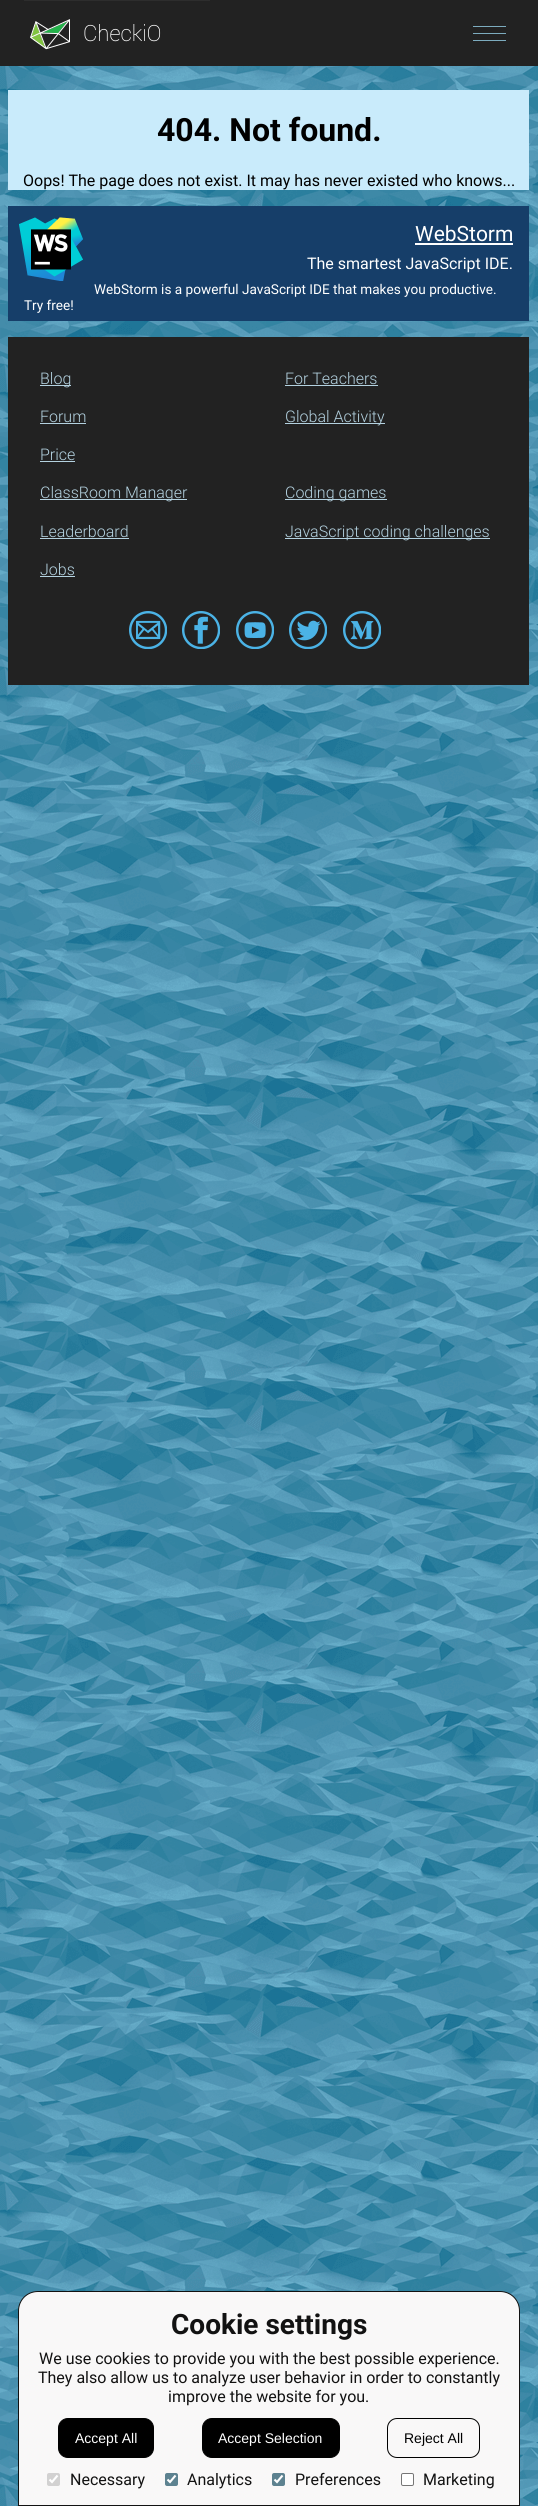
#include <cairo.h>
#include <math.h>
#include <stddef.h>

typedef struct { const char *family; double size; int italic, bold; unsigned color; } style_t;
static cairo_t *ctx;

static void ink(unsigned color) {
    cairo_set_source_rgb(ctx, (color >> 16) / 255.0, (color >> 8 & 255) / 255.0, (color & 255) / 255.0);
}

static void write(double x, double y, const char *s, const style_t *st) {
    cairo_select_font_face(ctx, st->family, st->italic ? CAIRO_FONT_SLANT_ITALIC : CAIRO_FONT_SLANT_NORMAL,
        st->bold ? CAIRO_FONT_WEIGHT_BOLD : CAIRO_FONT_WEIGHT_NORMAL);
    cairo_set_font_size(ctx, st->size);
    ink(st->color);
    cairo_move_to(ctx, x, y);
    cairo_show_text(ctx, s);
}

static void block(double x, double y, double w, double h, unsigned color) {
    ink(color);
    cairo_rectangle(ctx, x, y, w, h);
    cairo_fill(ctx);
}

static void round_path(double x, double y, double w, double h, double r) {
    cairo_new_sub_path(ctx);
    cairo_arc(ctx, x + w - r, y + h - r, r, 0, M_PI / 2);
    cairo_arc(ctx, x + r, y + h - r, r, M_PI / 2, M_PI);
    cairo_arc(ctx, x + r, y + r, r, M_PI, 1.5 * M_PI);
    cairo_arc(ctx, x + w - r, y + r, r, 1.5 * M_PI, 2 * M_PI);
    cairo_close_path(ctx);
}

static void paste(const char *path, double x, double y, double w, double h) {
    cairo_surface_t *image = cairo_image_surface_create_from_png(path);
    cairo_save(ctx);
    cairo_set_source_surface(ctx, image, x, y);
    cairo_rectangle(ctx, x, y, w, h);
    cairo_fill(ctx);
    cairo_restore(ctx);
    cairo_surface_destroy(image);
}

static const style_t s1 = {"Roboto", 32, 0, 1, 0x000000};
static const style_t s2 = {"Roboto", 16, 0, 0, 0x000000};
static const style_t s3 = {"Roboto", 21, 0, 0, 0xffffff};
static const style_t s4 = {"Roboto", 16, 0, 0, 0xffffff};
static const style_t s5 = {"Roboto", 13.6, 0, 0, 0xffffff};
static const style_t s6 = {"Roboto Light", 16, 0, 0, 0xb4d2e0};
static const style_t s7 = {"Roboto", 28, 0, 1, 0x121212};
static const style_t s8 = {"Roboto", 16, 0, 0, 0x121212};
static const style_t s9 = {"Liberation Sans", 14, 0, 0, 0xffffff};
static const style_t s10 = {"Liberation Sans", 14, 0, 0, 0x000000};

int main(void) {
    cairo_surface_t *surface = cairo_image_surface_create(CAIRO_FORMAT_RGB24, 538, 2506);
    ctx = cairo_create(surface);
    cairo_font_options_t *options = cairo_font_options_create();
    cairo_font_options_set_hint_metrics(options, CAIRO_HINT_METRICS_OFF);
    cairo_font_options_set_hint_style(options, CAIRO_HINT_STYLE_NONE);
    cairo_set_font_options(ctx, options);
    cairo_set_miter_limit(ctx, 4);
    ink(0xffffff);
    cairo_paint(ctx);
    paste("pic1.png", 0, 66, 538, 2440);
    block(0, 0, 538, 66, 0x222222);
    block(24, 0, 186, 1, 0x2d2d2d);
    paste("pic2.png", 30, 19, 40, 31);
    paste("pic3.png", 84, 24, 77, 18);
    block(473, 33, 33, 1, 0x7dacbf);
    block(473, 26, 33, 1, 0x7dacbf);
    block(473, 40, 33, 1, 0x7dacbf);
    block(8, 90, 521, 100, 0xc9ebfb);
    write(157, 141, "404. Not found.", &s1);
    write(23, 186, "Oops! The page does not exist. It may has never existed who knows...", &s2);
    block(8, 206, 521, 115, 0x163e69);
    paste("pic4.png", 19, 217, 64, 64);
    write(415, 241, "WebStorm", &s3);
    block(415, 243, 98, 2, 0xffffff);
    write(307, 269, "The smartest JavaScript IDE.", &s4);
    write(94, 294, "WebStorm is a powerful JavaScript IDE that makes you productive.", &s5);
    write(24, 310, "Try free!", &s5);
    block(8, 337, 521, 348, 0x222222);
    block(40, 385, 31, 1, 0xb4d2e0);
    write(40, 384, "Blog", &s6);
    write(40, 422, "Forum", &s6);
    block(40, 423, 46, 1, 0xb4d2e0);
    write(40, 460, "Price", &s6);
    block(40, 461, 35, 1, 0xb4d2e0);
    write(285, 384, "For Teachers", &s6);
    block(285, 385, 93, 1, 0xb4d2e0);
    block(285, 423, 100, 1, 0xb4d2e0);
    write(285, 422, "Global Activity", &s6);
    block(40, 499, 147, 1, 0xb4d2e0);
    write(40, 498, "ClassRoom Manager", &s6);
    write(40, 537, "Leaderboard", &s6);
    block(40, 538, 89, 1, 0xb4d2e0);
    write(40, 575, "Jobs", &s6);
    block(40, 576, 35, 1, 0xb4d2e0);
    block(285, 499, 102, 1, 0xb4d2e0);
    write(285, 498, "Coding games", &s6);
    block(285, 538, 205, 1, 0xb4d2e0);
    write(285, 537, "JavaScript coding challenges", &s6);
    paste("pic5.png", 129, 611, 38, 38);
    paste("pic6.png", 182, 611, 38, 38);
    paste("pic7.png", 236, 611, 38, 38);
    paste("pic8.png", 289, 611, 38, 38);
    paste("pic9.png", 343, 611, 38, 38);
    ink(0xf9f8f8);
    cairo_new_path(ctx);
    cairo_move_to(ctx, 38, 2291.5);
    cairo_line_to(ctx, 500, 2291.5);
    cairo_curve_to(ctx, 511, 2291.5, 519.5, 2300, 519.5, 2311);
    cairo_line_to(ctx, 519.5, 2505.5);
    cairo_line_to(ctx, 18.5, 2505.5);
    cairo_line_to(ctx, 18.5, 2311);
    cairo_curve_to(ctx, 18.5, 2300, 27, 2291.5, 38, 2291.5);
    cairo_close_path(ctx);
    cairo_fill_preserve(ctx);
    ink(0x121212);
    cairo_set_line_width(ctx, 1);
    cairo_stroke(ctx);
    write(171, 2334, "Cookie settings", &s7);
    write(39, 2364, "We use cookies to provide you with the best possible experience.", &s8);
    write(38, 2383, "They also allow us to analyze user behavior in order to constantly", &s8);
    write(168, 2402, "improve the website for you.", &s8);
    ink(0x000000);
    round_path(58.5, 2418.5, 95, 39, 9.5);
    cairo_fill_preserve(ctx);
    cairo_stroke(ctx);
    write(75, 2443, "Accept All", &s9);
    ink(0x000000);
    round_path(202.5, 2418.5, 137, 39, 9.5);
    cairo_fill_preserve(ctx);
    cairo_stroke(ctx);
    write(218, 2443, "Accept Selection", &s9);
    round_path(387.5, 2418.5, 92, 39, 9.5);
    ink(0x000000);
    cairo_stroke(ctx);
    write(404, 2443, "Reject All", &s10);
    ink(0xd2d1d1);
    round_path(47, 2473, 13, 13, 2);
    cairo_fill(ctx);
    cairo_new_path(ctx);
    cairo_move_to(ctx, 49.5, 2479.5);
    cairo_line_to(ctx, 52, 2482);
    cairo_line_to(ctx, 57.5, 2475.5);
    ink(0xffffff);
    cairo_set_line_width(ctx, 2.1);
    cairo_stroke(ctx);
    write(70, 2485, "Necessary", &s8);
    ink(0x5d8290);
    round_path(165, 2473, 13, 13, 2);
    cairo_fill(ctx);
    cairo_new_path(ctx);
    cairo_move_to(ctx, 167.5, 2479.5);
    cairo_line_to(ctx, 170, 2482);
    cairo_line_to(ctx, 175.5, 2475.5);
    ink(0xffffff);
    cairo_stroke(ctx);
    write(187, 2485, "Analytics", &s8);
    ink(0x5d8290);
    round_path(272, 2473, 13, 13, 2);
    cairo_fill(ctx);
    cairo_new_path(ctx);
    cairo_move_to(ctx, 274.5, 2479.5);
    cairo_line_to(ctx, 277, 2482);
    cairo_line_to(ctx, 282.5, 2475.5);
    ink(0xffffff);
    cairo_stroke(ctx);
    write(295, 2485, "Preferences", &s8);
    ink(0xffffff);
    round_path(401.5, 2473.5, 12, 12, 1.5);
    cairo_fill_preserve(ctx);
    ink(0x767676);
    cairo_set_line_width(ctx, 1);
    cairo_stroke(ctx);
    write(423, 2485, "Marketing", &s8);
    cairo_surface_write_to_png(surface, "screenshot.png");
    cairo_font_options_destroy(options);
    cairo_destroy(ctx);
    cairo_surface_destroy(surface);
    return 0;
}
